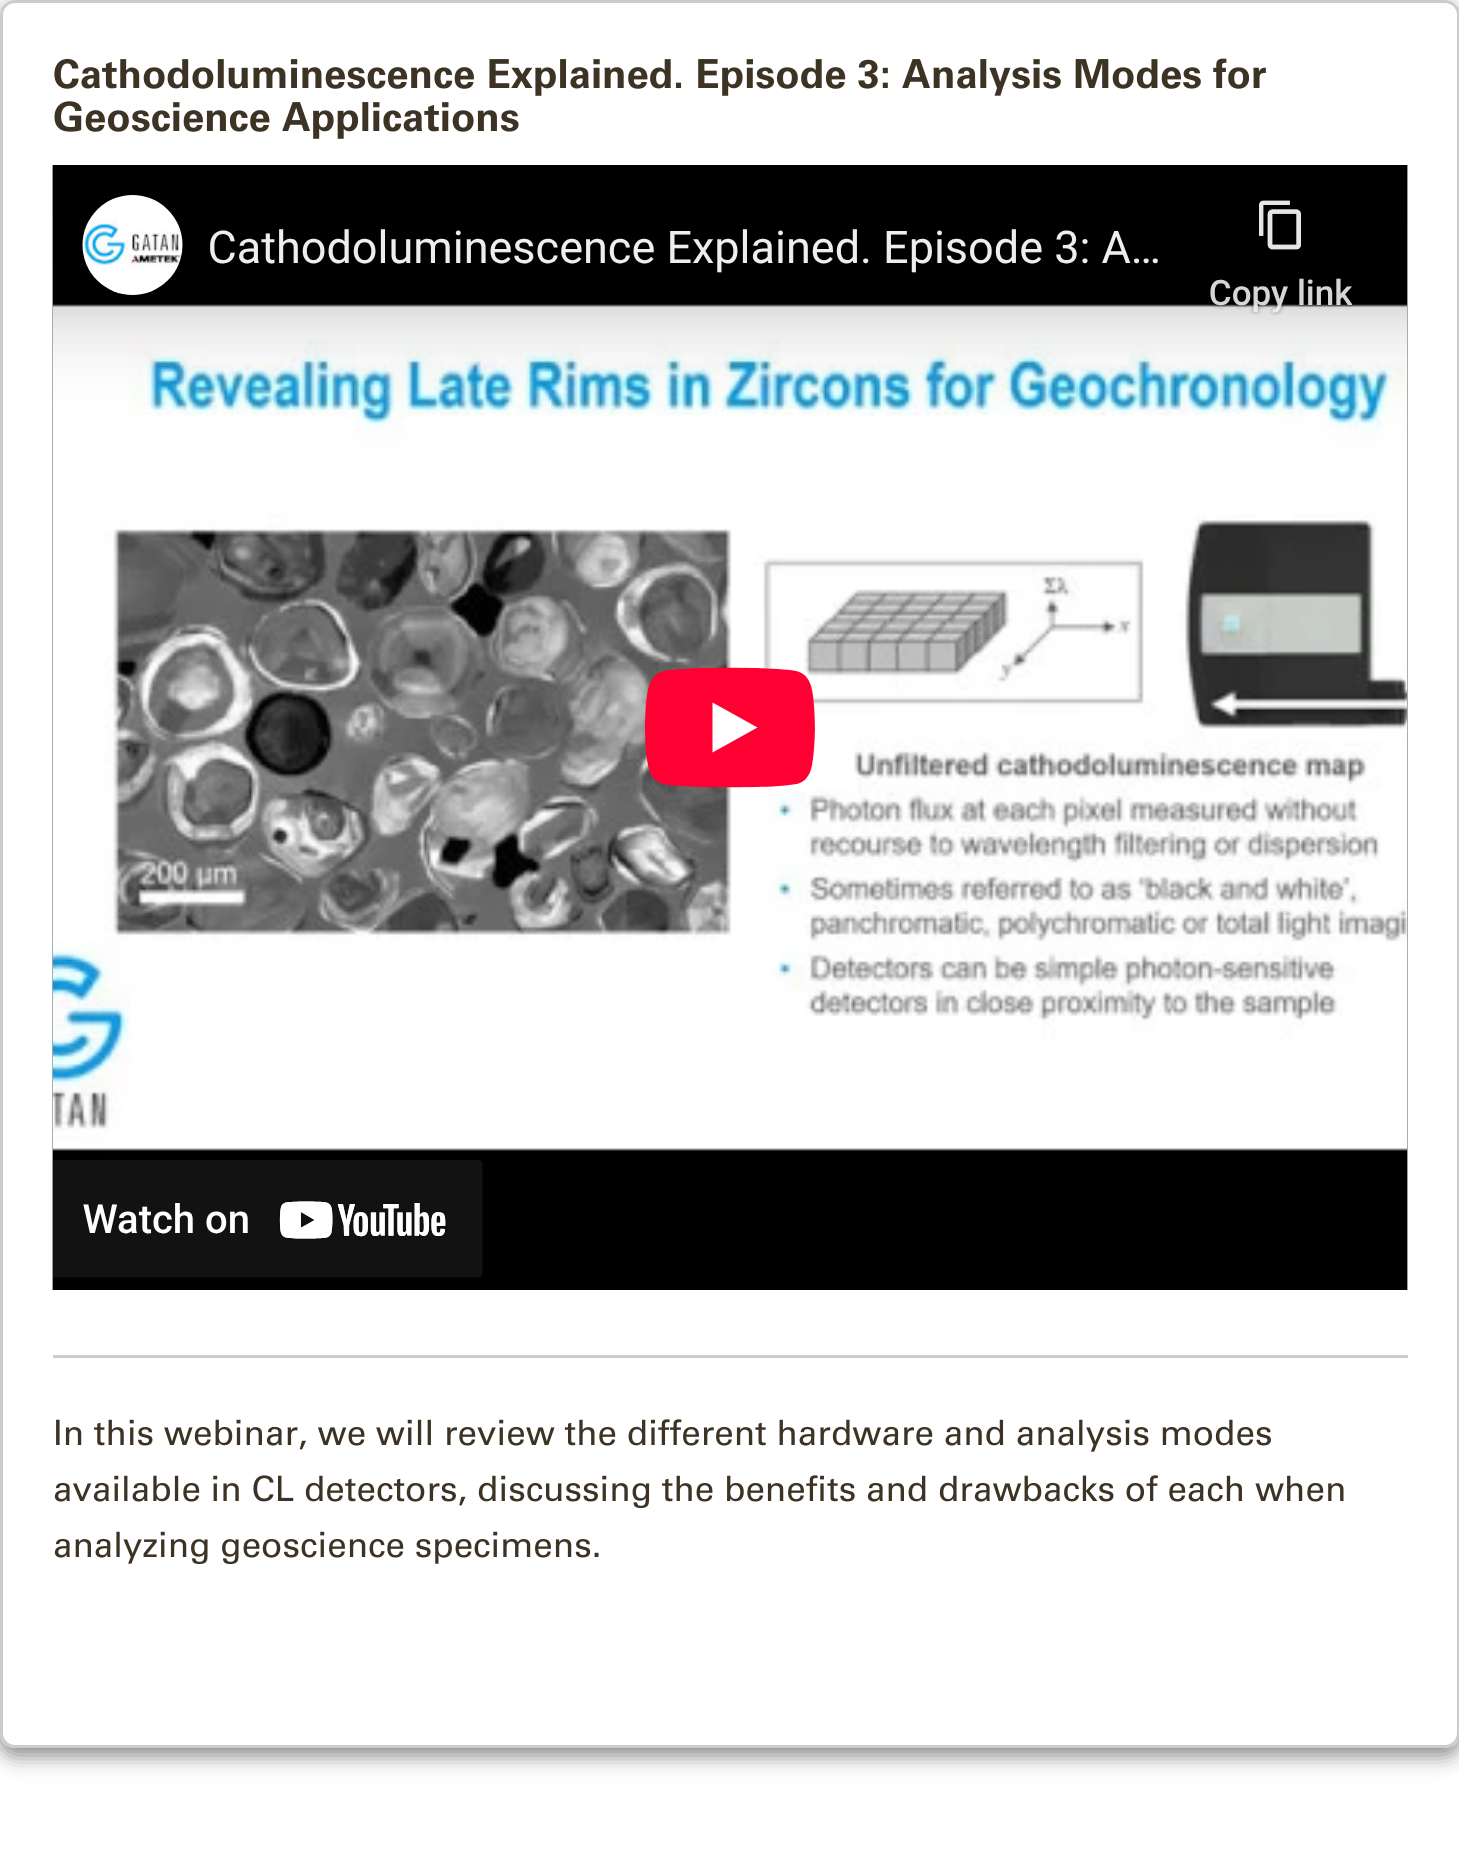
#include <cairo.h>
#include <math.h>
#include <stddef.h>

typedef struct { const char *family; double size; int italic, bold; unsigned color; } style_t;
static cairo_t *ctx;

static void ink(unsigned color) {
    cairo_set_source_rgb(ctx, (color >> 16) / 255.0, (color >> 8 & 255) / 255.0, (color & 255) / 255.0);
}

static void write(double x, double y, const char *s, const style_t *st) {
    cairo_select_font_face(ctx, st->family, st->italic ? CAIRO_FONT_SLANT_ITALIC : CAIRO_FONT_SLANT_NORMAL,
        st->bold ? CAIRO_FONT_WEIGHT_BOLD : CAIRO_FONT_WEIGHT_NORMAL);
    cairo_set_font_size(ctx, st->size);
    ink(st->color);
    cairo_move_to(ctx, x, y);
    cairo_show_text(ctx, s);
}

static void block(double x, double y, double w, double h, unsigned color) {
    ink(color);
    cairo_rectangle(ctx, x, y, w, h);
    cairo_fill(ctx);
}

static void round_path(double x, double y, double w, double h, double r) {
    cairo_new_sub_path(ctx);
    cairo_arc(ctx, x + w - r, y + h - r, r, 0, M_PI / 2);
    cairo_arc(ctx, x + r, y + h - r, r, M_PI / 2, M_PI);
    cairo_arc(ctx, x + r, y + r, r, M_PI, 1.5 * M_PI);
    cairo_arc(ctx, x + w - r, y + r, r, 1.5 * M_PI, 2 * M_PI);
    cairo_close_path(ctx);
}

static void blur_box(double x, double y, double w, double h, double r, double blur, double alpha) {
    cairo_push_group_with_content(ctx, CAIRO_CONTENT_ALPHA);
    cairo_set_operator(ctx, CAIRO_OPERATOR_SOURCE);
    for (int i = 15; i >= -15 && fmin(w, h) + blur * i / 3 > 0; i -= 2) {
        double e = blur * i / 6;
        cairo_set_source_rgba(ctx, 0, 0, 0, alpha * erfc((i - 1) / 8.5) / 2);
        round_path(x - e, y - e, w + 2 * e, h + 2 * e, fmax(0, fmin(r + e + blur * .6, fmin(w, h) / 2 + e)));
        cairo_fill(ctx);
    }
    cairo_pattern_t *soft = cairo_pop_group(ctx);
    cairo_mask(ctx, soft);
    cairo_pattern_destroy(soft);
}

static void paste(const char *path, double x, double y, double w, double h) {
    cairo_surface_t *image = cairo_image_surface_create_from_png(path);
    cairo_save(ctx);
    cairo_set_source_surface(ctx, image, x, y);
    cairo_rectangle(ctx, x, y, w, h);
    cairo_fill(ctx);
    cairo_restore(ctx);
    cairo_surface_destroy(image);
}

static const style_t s1 = {"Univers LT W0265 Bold", 40, 0, 1, 0x3d3324};
static const style_t s2 = {"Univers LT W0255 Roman", 35, 0, 0, 0x3d3324};

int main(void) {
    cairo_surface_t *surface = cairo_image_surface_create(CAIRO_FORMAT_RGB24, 1459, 1864);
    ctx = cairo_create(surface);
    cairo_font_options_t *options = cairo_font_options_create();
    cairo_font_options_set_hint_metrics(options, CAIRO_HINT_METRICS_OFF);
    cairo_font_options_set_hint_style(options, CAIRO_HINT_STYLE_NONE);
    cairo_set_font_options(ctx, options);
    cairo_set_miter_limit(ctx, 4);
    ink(0xffffff);
    cairo_paint(ctx);
    cairo_save(ctx);
    cairo_set_fill_rule(ctx, CAIRO_FILL_RULE_EVEN_ODD);
    cairo_new_path(ctx);
    cairo_move_to(ctx, 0, 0);
    cairo_line_to(ctx, 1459, 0);
    cairo_line_to(ctx, 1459, 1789);
    cairo_line_to(ctx, 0, 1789);
    cairo_close_path(ctx);
    cairo_move_to(ctx, 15, 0);
    cairo_line_to(ctx, 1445, 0);
    cairo_curve_to(ctx, 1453.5, 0, 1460, 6.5, 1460, 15);
    cairo_line_to(ctx, 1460, 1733);
    cairo_curve_to(ctx, 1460, 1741.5, 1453.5, 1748, 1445, 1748);
    cairo_line_to(ctx, 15, 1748);
    cairo_curve_to(ctx, 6.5, 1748, 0, 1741.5, 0, 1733);
    cairo_line_to(ctx, 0, 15);
    cairo_curve_to(ctx, 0, 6.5, 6.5, 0, 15, 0);
    cairo_close_path(ctx);
    cairo_clip(ctx);
    ink(0x000000);
    blur_box(0, 8, 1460, 1747, 15, 11, 0.5);
    cairo_restore(ctx);
    round_path(1.5, 1.5, 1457, 1745, 13.5);
    cairo_set_source_rgba(ctx, 0, 0, 0, 0.2);
    cairo_set_line_width(ctx, 3);
    cairo_stroke(ctx);
    write(53, 88, "Cathodoluminescence Explained. Episode 3: Analysis Modes for", &s1);
    write(53, 131, "Geoscience Applications", &s1);
    paste("pic1.png", 52, 165, 1356, 1125);
    block(53, 1355, 1355, 3, 0xcccccc);
    write(53, 1445, "In this webinar, we will review the different hardware and analysis modes", &s2);
    write(53, 1501, "available in CL detectors, discussing the benefits and drawbacks of each when", &s2);
    write(53, 1557, "analyzing geoscience specimens.", &s2);
    cairo_surface_write_to_png(surface, "screenshot.png");
    cairo_font_options_destroy(options);
    cairo_destroy(ctx);
    cairo_surface_destroy(surface);
    return 0;
}
